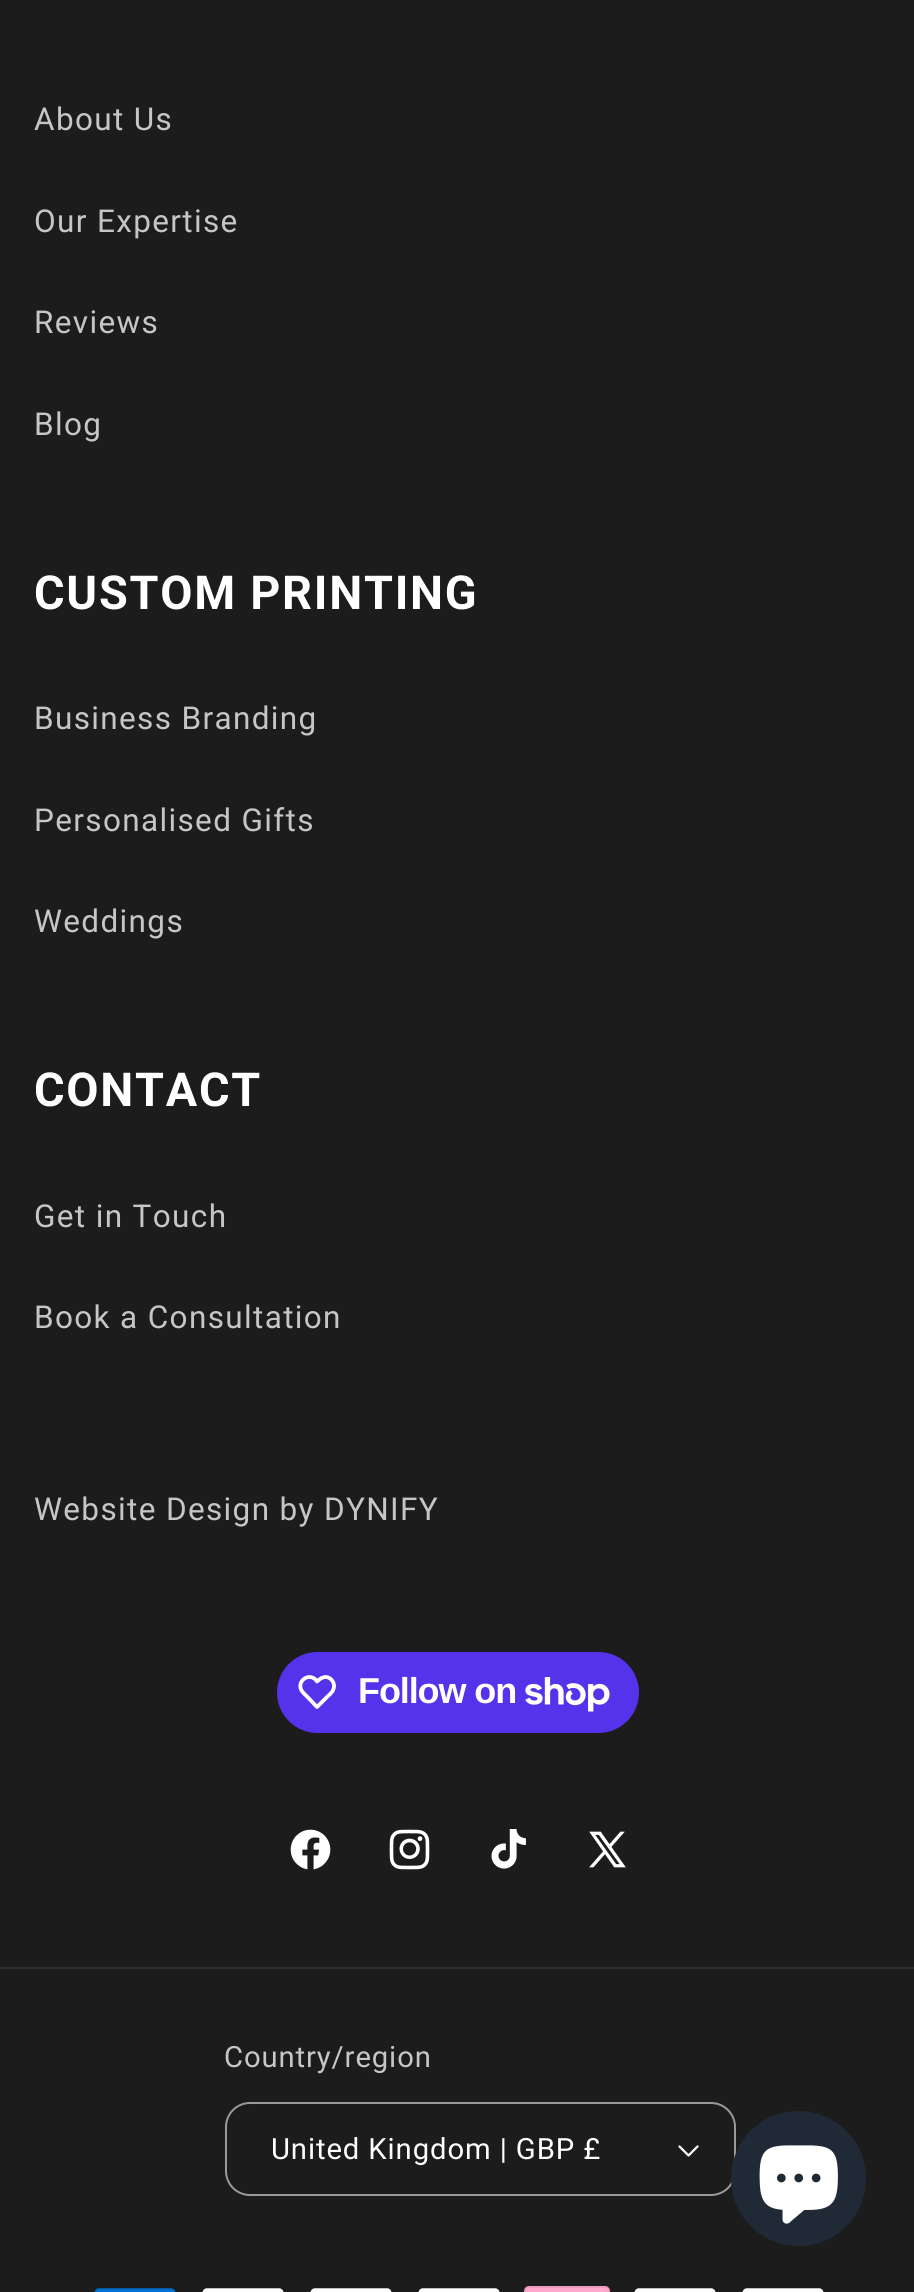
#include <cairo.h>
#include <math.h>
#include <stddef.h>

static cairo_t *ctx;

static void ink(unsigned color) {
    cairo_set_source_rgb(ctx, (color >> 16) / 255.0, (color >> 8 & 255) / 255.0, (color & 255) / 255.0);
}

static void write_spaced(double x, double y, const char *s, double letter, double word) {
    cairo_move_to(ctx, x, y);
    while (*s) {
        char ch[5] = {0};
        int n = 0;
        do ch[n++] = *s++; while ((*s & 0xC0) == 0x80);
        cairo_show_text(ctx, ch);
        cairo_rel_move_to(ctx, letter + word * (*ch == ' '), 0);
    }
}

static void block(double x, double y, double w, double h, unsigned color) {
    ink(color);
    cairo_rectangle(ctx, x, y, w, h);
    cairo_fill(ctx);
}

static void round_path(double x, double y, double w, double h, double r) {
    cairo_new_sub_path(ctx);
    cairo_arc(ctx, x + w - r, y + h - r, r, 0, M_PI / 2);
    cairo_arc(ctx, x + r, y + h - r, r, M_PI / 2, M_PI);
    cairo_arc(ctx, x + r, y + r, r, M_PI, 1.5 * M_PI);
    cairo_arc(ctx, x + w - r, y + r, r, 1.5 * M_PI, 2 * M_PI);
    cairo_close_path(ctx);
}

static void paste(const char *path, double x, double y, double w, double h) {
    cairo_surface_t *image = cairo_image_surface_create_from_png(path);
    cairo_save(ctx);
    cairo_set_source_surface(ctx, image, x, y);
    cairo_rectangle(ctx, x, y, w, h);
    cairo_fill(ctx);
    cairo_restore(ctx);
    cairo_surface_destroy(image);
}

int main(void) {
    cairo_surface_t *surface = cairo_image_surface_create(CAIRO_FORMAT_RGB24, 914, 2292);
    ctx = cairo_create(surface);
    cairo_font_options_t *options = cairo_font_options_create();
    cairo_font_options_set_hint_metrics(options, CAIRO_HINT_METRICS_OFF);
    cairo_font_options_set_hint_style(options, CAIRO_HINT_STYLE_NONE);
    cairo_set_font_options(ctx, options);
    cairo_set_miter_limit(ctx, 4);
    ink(0x1c1c1c);
    cairo_paint(ctx);
    cairo_select_font_face(ctx, "Roboto", CAIRO_FONT_SLANT_NORMAL, CAIRO_FONT_WEIGHT_NORMAL);
    cairo_set_font_size(ctx, 31.5);
    ink(0xc6c6c6);
    write_spaced(34, 130, "About Us", 1.35, 0);
    write_spaced(34, 232, "Our Expertise", 1.35, 0);
    write_spaced(34, 333, "Reviews", 1.35, 0);
    write_spaced(34, 435, "Blog", 1.35, 0);
    cairo_select_font_face(ctx, "Roboto", CAIRO_FONT_SLANT_NORMAL, CAIRO_FONT_WEIGHT_BOLD);
    cairo_set_font_size(ctx, 46.75);
    ink(0xffffff);
    write_spaced(34, 609, "CUSTOM PRINTING", 1.75, 0);
    cairo_select_font_face(ctx, "Roboto", CAIRO_FONT_SLANT_NORMAL, CAIRO_FONT_WEIGHT_NORMAL);
    cairo_set_font_size(ctx, 31.5);
    ink(0xc6c6c6);
    write_spaced(34, 729, "Business Branding", 1.35, 0);
    write_spaced(34, 831, "Personalised Gifts", 1.35, 0);
    write_spaced(34, 932, "Weddings", 1.35, 0);
    cairo_select_font_face(ctx, "Roboto", CAIRO_FONT_SLANT_NORMAL, CAIRO_FONT_WEIGHT_BOLD);
    cairo_set_font_size(ctx, 46.75);
    ink(0xffffff);
    write_spaced(34, 1106, "CONTACT", 1.75, 0);
    cairo_select_font_face(ctx, "Roboto", CAIRO_FONT_SLANT_NORMAL, CAIRO_FONT_WEIGHT_NORMAL);
    cairo_set_font_size(ctx, 31.5);
    ink(0xc6c6c6);
    write_spaced(34, 1227, "Get in Touch", 1.35, 0);
    write_spaced(34, 1328, "Book a Consultation", 1.35, 0);
    write_spaced(34, 1520, "Website Design by DYNIFY", 1.35, 0);
    ink(0x5433eb);
    round_path(277, 1652, 362, 81, 40.5);
    cairo_fill(ctx);
    cairo_new_path(ctx);
    cairo_move_to(ctx, 315.5, 1679.5);
    cairo_line_to(ctx, 317, 1681.5);
    cairo_curve_to(ctx, 319, 1680, 320.5, 1678, 323, 1677.5);
    cairo_curve_to(ctx, 329.5, 1675, 336, 1682.5, 333.5, 1689);
    cairo_curve_to(ctx, 332.5, 1692.5, 329, 1695, 327, 1697);
    cairo_line_to(ctx, 317, 1707);
    cairo_line_to(ctx, 307.5, 1697);
    cairo_curve_to(ctx, 305.5, 1695, 302.5, 1692.5, 301, 1689.5);
    cairo_curve_to(ctx, 297.5, 1680.5, 308.5, 1673, 315.5, 1679.5);
    cairo_close_path(ctx);
    ink(0xffffff);
    cairo_set_line_width(ctx, 3.8);
    cairo_set_line_join(ctx, CAIRO_LINE_JOIN_ROUND);
    cairo_stroke(ctx);
    cairo_select_font_face(ctx, "Liberation Sans", CAIRO_FONT_SLANT_NORMAL, CAIRO_FONT_WEIGHT_BOLD);
    cairo_set_font_size(ctx, 36);
    write_spaced(358, 1703, "Follow on", -1.1, 0);
    paste("pic1.png", 525, 1677, 85, 35);
    paste("pic2.png", 290, 1829, 41, 41);
    paste("pic3.png", 389, 1829, 41, 41);
    paste("pic4.png", 491, 1829, 35, 40);
    paste("pic5.png", 589, 1831, 37, 37);
    block(0, 1967, 914, 2, 0x2e2e2e);
    cairo_select_font_face(ctx, "Roboto", CAIRO_FONT_SLANT_NORMAL, CAIRO_FONT_WEIGHT_NORMAL);
    cairo_set_font_size(ctx, 29.25);
    ink(0xc6c6c6);
    write_spaced(224, 2067, "Country/region", 0.9, 0);
    paste("pic6.png", 678, 2145, 21, 12);
    round_path(226, 2103, 509, 92, 24);
    ink(0x999999);
    cairo_set_line_width(ctx, 2);
    cairo_set_line_join(ctx, CAIRO_LINE_JOIN_MITER);
    cairo_stroke(ctx);
    ink(0xffffff);
    write_spaced(271, 2159, "United Kingdom | GBP £", 0.9, 0);
    paste("pic7.png", 94, 2288, 82, 4);
    paste("pic8.png", 202, 2288, 82, 4);
    paste("pic8.png", 310, 2288, 82, 4);
    paste("pic8.png", 418, 2288, 82, 4);
    paste("pic9.png", 524, 2286, 86, 6);
    paste("pic8.png", 634, 2288, 82, 4);
    paste("pic8.png", 742, 2288, 82, 4);
    ink(0x202a36);
    cairo_arc(ctx, 798.5, 2178.5, 67.5, 0, 2 * M_PI);
    cairo_fill(ctx);
    paste("pic10.png", 759, 2145, 79, 79);
    cairo_surface_write_to_png(surface, "screenshot.png");
    cairo_font_options_destroy(options);
    cairo_destroy(ctx);
    cairo_surface_destroy(surface);
    return 0;
}
